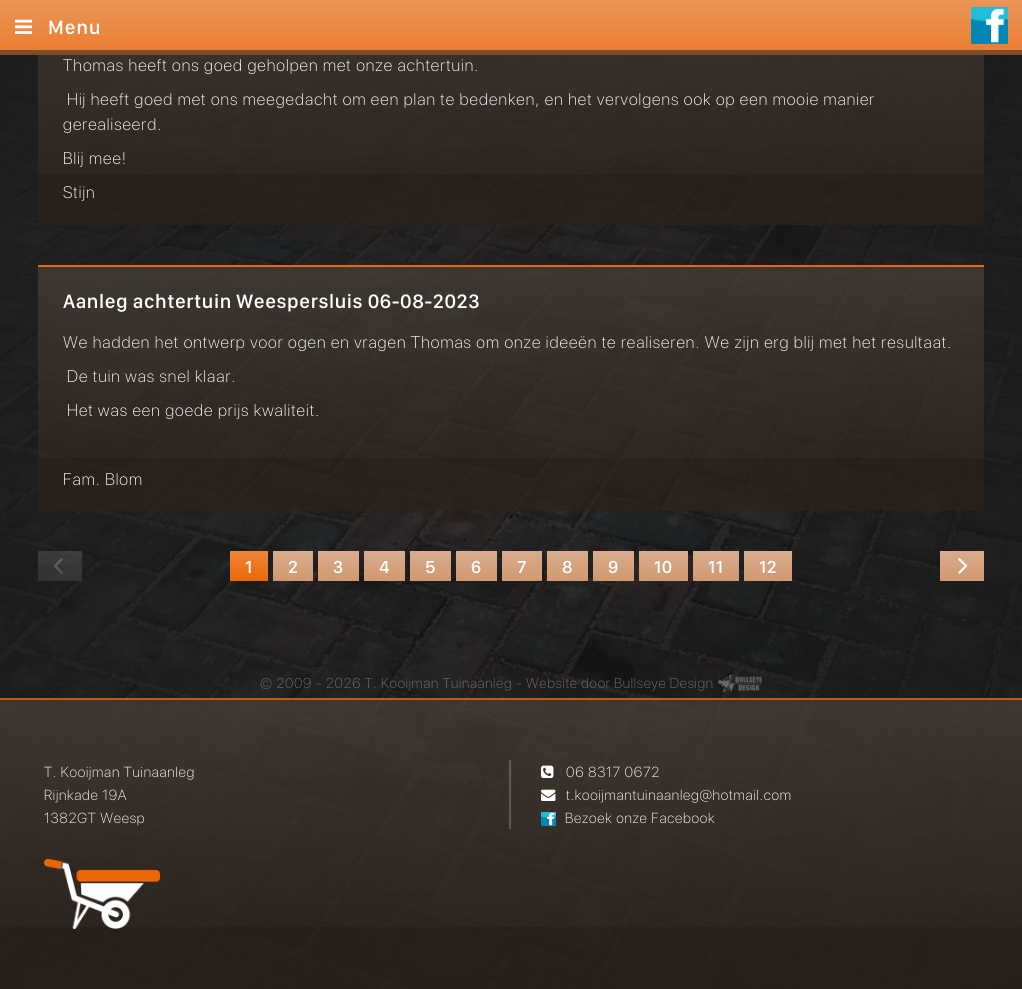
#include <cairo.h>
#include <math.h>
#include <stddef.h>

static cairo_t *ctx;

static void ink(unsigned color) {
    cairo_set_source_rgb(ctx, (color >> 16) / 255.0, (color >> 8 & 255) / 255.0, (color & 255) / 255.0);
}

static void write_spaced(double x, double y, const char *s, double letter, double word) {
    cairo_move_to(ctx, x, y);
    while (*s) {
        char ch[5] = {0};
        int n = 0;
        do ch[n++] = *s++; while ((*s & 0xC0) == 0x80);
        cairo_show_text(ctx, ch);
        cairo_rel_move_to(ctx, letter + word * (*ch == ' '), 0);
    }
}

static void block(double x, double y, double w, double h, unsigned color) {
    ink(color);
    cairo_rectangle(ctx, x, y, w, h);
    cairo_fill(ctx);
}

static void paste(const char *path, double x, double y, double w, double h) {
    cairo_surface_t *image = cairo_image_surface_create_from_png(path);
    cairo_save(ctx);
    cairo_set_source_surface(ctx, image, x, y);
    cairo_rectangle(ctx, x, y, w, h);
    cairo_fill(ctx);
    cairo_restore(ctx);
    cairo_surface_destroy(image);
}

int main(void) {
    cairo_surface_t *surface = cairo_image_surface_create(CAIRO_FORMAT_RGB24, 1022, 989);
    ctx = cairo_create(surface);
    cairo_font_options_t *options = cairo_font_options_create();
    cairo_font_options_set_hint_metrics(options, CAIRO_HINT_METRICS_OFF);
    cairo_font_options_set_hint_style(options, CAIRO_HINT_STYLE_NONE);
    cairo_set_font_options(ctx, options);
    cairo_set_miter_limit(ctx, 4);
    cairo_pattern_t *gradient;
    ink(0xffffff);
    cairo_paint(ctx);
    gradient = cairo_pattern_create_linear(511, 0, 511, 55);
    cairo_pattern_add_color_stop_rgba(gradient, 0, 0.553, 0.341, 0.192, 1);
    cairo_pattern_add_color_stop_rgba(gradient, 1, 0.482, 0.298, 0.169, 1);
    cairo_set_source(ctx, gradient);
    cairo_pattern_destroy(gradient);
    cairo_rectangle(ctx, 0, 0, 1022, 55);
    cairo_fill(ctx);
    cairo_set_source_rgba(ctx, 1, 1, 1, 0.8);
    cairo_rectangle(ctx, 0, 0, 1022, 50);
    cairo_fill(ctx);
    gradient = cairo_pattern_create_linear(511, 0, 511, 50);
    cairo_pattern_add_color_stop_rgba(gradient, 0, 0.925, 0.404, 0.027, 0.6);
    cairo_pattern_add_color_stop_rgba(gradient, 1, 0.925, 0.404, 0.027, 0.8);
    cairo_set_source(ctx, gradient);
    cairo_pattern_destroy(gradient);
    cairo_rectangle(ctx, 0, 0, 1022, 50);
    cairo_fill(ctx);
    paste("pic1.png", 15, 19, 18, 15);
    cairo_select_font_face(ctx, "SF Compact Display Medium", CAIRO_FONT_SLANT_NORMAL, CAIRO_FONT_WEIGHT_NORMAL);
    cairo_set_font_size(ctx, 20);
    ink(0xffffff);
    write_spaced(48, 34, "Menu", 1, 0);
    paste("pic2.png", 971, 7, 37, 37);
    paste("pic10.png", 0, 55, 1022, 934);
    cairo_set_source_rgba(ctx, 0.176, 0.129, 0.098, 0.7);
    cairo_rectangle(ctx, 38, 55, 946, 170);
    cairo_fill(ctx);
    gradient = cairo_pattern_create_linear(511, -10, 511, 225);
    cairo_pattern_add_color_stop_rgba(gradient, 0, 1, 1, 1, 0.1);
    cairo_pattern_add_color_stop_rgba(gradient, 1, 1, 1, 1, 0);
    cairo_set_source(ctx, gradient);
    cairo_pattern_destroy(gradient);
    cairo_rectangle(ctx, 38, 55, 946, 119);
    cairo_fill(ctx);
    cairo_select_font_face(ctx, "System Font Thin", CAIRO_FONT_SLANT_NORMAL, CAIRO_FONT_WEIGHT_NORMAL);
    cairo_set_font_size(ctx, 16.77);
    ink(0xffffff);
    write_spaced(63, 71, "Thomas heeft ons goed geholpen met onze achtertuin.", 1.01, 0);
    write_spaced(67, 105, "Hij heeft goed met ons meegedacht om een plan te bedenken, en het vervolgens ook op een mooie manier", 1.01, 0);
    write_spaced(63, 130, "gerealiseerd.", 1.01, 0);
    write_spaced(63, 164, "Blij mee!", 1.01, 0);
    write_spaced(63, 198, "Stijn", 1.01, 0);
    cairo_set_source_rgba(ctx, 0.176, 0.129, 0.098, 0.7);
    cairo_rectangle(ctx, 38, 267, 946, 244);
    cairo_fill(ctx);
    gradient = cairo_pattern_create_linear(511, 267, 511, 511);
    cairo_pattern_add_color_stop_rgba(gradient, 0, 1, 1, 1, 0.1);
    cairo_pattern_add_color_stop_rgba(gradient, 1, 1, 1, 1, 0);
    cairo_set_source(ctx, gradient);
    cairo_pattern_destroy(gradient);
    cairo_rectangle(ctx, 38, 267, 946, 191);
    cairo_fill(ctx);
    block(38, 265, 946, 2, 0xec6707);
    cairo_select_font_face(ctx, "SF Compact Display Medium", CAIRO_FONT_SLANT_NORMAL, CAIRO_FONT_WEIGHT_NORMAL);
    cairo_set_font_size(ctx, 20.1);
    ink(0xffffff);
    write_spaced(63, 308, "Aanleg achtertuin Weespersluis 06-08-2023", 0.6, 0);
    cairo_select_font_face(ctx, "System Font Thin", CAIRO_FONT_SLANT_NORMAL, CAIRO_FONT_WEIGHT_NORMAL);
    cairo_set_font_size(ctx, 16.77);
    write_spaced(63, 348, "We hadden het ontwerp voor ogen en vragen Thomas om onze ideeën te realiseren. We zijn erg blij met het resultaat.", 1.01, 0);
    write_spaced(67, 382, "De tuin was snel klaar.", 1.01, 0);
    write_spaced(67, 416, "Het was een goede prijs kwaliteit.", 1.01, 0);
    write_spaced(63, 485, "Fam. Blom", 1.01, 0);
    cairo_set_source_rgba(ctx, 0.561, 0.561, 0.561, 0.2);
    cairo_rectangle(ctx, 38, 551, 44, 30);
    cairo_fill(ctx);
    gradient = cairo_pattern_create_linear(60, 551, 60, 581);
    cairo_pattern_add_color_stop_rgba(gradient, 0, 1, 1, 1, 0.04);
    cairo_pattern_add_color_stop_rgba(gradient, 1, 1, 1, 1, 0);
    cairo_set_source(ctx, gradient);
    cairo_pattern_destroy(gradient);
    cairo_rectangle(ctx, 38, 551, 44, 14);
    cairo_fill(ctx);
    paste("pic3.png", 54, 558, 9, 16);
    gradient = cairo_pattern_create_linear(249, 551, 249, 581);
    cairo_pattern_add_color_stop_rgba(gradient, 0, 0.941, 0.522, 0.224, 1);
    cairo_pattern_add_color_stop_rgba(gradient, 1, 0.925, 0.404, 0.027, 1);
    cairo_set_source(ctx, gradient);
    cairo_pattern_destroy(gradient);
    cairo_rectangle(ctx, 230, 551, 38, 30);
    cairo_fill(ctx);
    cairo_select_font_face(ctx, "SF Compact Display Medium", CAIRO_FONT_SLANT_NORMAL, CAIRO_FONT_WEIGHT_NORMAL);
    cairo_set_font_size(ctx, 18);
    ink(0xffffff);
    write_spaced(245, 573, "1", 0.6, 0);
    gradient = cairo_pattern_create_linear(293, 551, 293, 581);
    cairo_pattern_add_color_stop_rgba(gradient, 0, 0.851, 0.678, 0.553, 1);
    cairo_pattern_add_color_stop_rgba(gradient, 1, 0.816, 0.596, 0.439, 1);
    cairo_set_source(ctx, gradient);
    cairo_pattern_destroy(gradient);
    cairo_rectangle(ctx, 273, 551, 40, 30);
    cairo_fill(ctx);
    ink(0xffffff);
    write_spaced(288, 573, "2", 0.6, 0);
    gradient = cairo_pattern_create_linear(339, 551, 339, 581);
    cairo_pattern_add_color_stop_rgba(gradient, 0, 0.851, 0.678, 0.553, 1);
    cairo_pattern_add_color_stop_rgba(gradient, 1, 0.816, 0.596, 0.439, 1);
    cairo_set_source(ctx, gradient);
    cairo_pattern_destroy(gradient);
    cairo_rectangle(ctx, 318, 551, 41, 30);
    cairo_fill(ctx);
    ink(0xffffff);
    write_spaced(333, 573, "3", 0.6, 0);
    gradient = cairo_pattern_create_linear(385, 551, 385, 581);
    cairo_pattern_add_color_stop_rgba(gradient, 0, 0.851, 0.678, 0.553, 1);
    cairo_pattern_add_color_stop_rgba(gradient, 1, 0.816, 0.596, 0.439, 1);
    cairo_set_source(ctx, gradient);
    cairo_pattern_destroy(gradient);
    cairo_rectangle(ctx, 364, 551, 41, 30);
    cairo_fill(ctx);
    ink(0xffffff);
    write_spaced(379, 573, "4", 0.6, 0);
    gradient = cairo_pattern_create_linear(431, 551, 431, 581);
    cairo_pattern_add_color_stop_rgba(gradient, 0, 0.851, 0.678, 0.553, 1);
    cairo_pattern_add_color_stop_rgba(gradient, 1, 0.816, 0.596, 0.439, 1);
    cairo_set_source(ctx, gradient);
    cairo_pattern_destroy(gradient);
    cairo_rectangle(ctx, 410, 551, 41, 30);
    cairo_fill(ctx);
    ink(0xffffff);
    write_spaced(425, 573, "5", 0.6, 0);
    gradient = cairo_pattern_create_linear(477, 551, 477, 581);
    cairo_pattern_add_color_stop_rgba(gradient, 0, 0.851, 0.678, 0.553, 1);
    cairo_pattern_add_color_stop_rgba(gradient, 1, 0.816, 0.596, 0.439, 1);
    cairo_set_source(ctx, gradient);
    cairo_pattern_destroy(gradient);
    cairo_rectangle(ctx, 456, 551, 41, 30);
    cairo_fill(ctx);
    ink(0xffffff);
    write_spaced(471, 573, "6", 0.6, 0);
    gradient = cairo_pattern_create_linear(522, 551, 522, 581);
    cairo_pattern_add_color_stop_rgba(gradient, 0, 0.851, 0.678, 0.553, 1);
    cairo_pattern_add_color_stop_rgba(gradient, 1, 0.816, 0.596, 0.439, 1);
    cairo_set_source(ctx, gradient);
    cairo_pattern_destroy(gradient);
    cairo_rectangle(ctx, 502, 551, 40, 30);
    cairo_fill(ctx);
    ink(0xffffff);
    write_spaced(517, 573, "7", 0.6, 0);
    gradient = cairo_pattern_create_linear(568, 551, 568, 581);
    cairo_pattern_add_color_stop_rgba(gradient, 0, 0.851, 0.678, 0.553, 1);
    cairo_pattern_add_color_stop_rgba(gradient, 1, 0.816, 0.596, 0.439, 1);
    cairo_set_source(ctx, gradient);
    cairo_pattern_destroy(gradient);
    cairo_rectangle(ctx, 547, 551, 41, 30);
    cairo_fill(ctx);
    ink(0xffffff);
    write_spaced(562, 573, "8", 0.6, 0);
    gradient = cairo_pattern_create_linear(614, 551, 614, 581);
    cairo_pattern_add_color_stop_rgba(gradient, 0, 0.851, 0.678, 0.553, 1);
    cairo_pattern_add_color_stop_rgba(gradient, 1, 0.816, 0.596, 0.439, 1);
    cairo_set_source(ctx, gradient);
    cairo_pattern_destroy(gradient);
    cairo_rectangle(ctx, 593, 551, 41, 30);
    cairo_fill(ctx);
    ink(0xffffff);
    write_spaced(608, 573, "9", 0.6, 0);
    gradient = cairo_pattern_create_linear(664, 551, 664, 581);
    cairo_pattern_add_color_stop_rgba(gradient, 0, 0.851, 0.678, 0.553, 1);
    cairo_pattern_add_color_stop_rgba(gradient, 1, 0.816, 0.596, 0.439, 1);
    cairo_set_source(ctx, gradient);
    cairo_pattern_destroy(gradient);
    cairo_rectangle(ctx, 639, 551, 49, 30);
    cairo_fill(ctx);
    ink(0xffffff);
    write_spaced(654, 573, "10", 0.6, 0);
    gradient = cairo_pattern_create_linear(716, 551, 716, 581);
    cairo_pattern_add_color_stop_rgba(gradient, 0, 0.851, 0.678, 0.553, 1);
    cairo_pattern_add_color_stop_rgba(gradient, 1, 0.816, 0.596, 0.439, 1);
    cairo_set_source(ctx, gradient);
    cairo_pattern_destroy(gradient);
    cairo_rectangle(ctx, 693, 551, 46, 30);
    cairo_fill(ctx);
    ink(0xffffff);
    write_spaced(708, 573, "11", 0.6, 0);
    gradient = cairo_pattern_create_linear(768, 551, 768, 581);
    cairo_pattern_add_color_stop_rgba(gradient, 0, 0.851, 0.678, 0.553, 1);
    cairo_pattern_add_color_stop_rgba(gradient, 1, 0.816, 0.596, 0.439, 1);
    cairo_set_source(ctx, gradient);
    cairo_pattern_destroy(gradient);
    cairo_rectangle(ctx, 744, 551, 48, 30);
    cairo_fill(ctx);
    ink(0xffffff);
    write_spaced(759, 573, "12", 0.6, 0);
    gradient = cairo_pattern_create_linear(962, 551, 962, 581);
    cairo_pattern_add_color_stop_rgba(gradient, 0, 0.851, 0.678, 0.553, 1);
    cairo_pattern_add_color_stop_rgba(gradient, 1, 0.816, 0.596, 0.439, 1);
    cairo_set_source(ctx, gradient);
    cairo_pattern_destroy(gradient);
    cairo_rectangle(ctx, 940, 551, 44, 30);
    cairo_fill(ctx);
    paste("pic4.png", 958, 558, 10, 16);
    cairo_select_font_face(ctx, "System Font Thin", CAIRO_FONT_SLANT_NORMAL, CAIRO_FONT_WEIGHT_NORMAL);
    cairo_set_font_size(ctx, 14.25);
    ink(0x737373);
    write_spaced(260, 688, "© 2009 - 2026 T. Kooijman Tuinaanleg - Website door Bullseye Design", 0.7, 0);
    paste("pic5.png", 718, 675, 44, 17);
    cairo_set_source_rgba(ctx, 0.176, 0.129, 0.098, 0.7);
    cairo_rectangle(ctx, 0, 698, 1022, 291);
    cairo_fill(ctx);
    gradient = cairo_pattern_create_linear(511, 700, 511, 989);
    cairo_pattern_add_color_stop_rgba(gradient, 0, 1, 1, 1, 0.1);
    cairo_pattern_add_color_stop_rgba(gradient, 1, 1, 1, 1, 0);
    cairo_set_source(ctx, gradient);
    cairo_pattern_destroy(gradient);
    cairo_rectangle(ctx, 0, 700, 1022, 227);
    cairo_fill(ctx);
    cairo_set_source_rgba(ctx, 0.925, 0.404, 0.027, 0.8);
    cairo_rectangle(ctx, 0, 698, 1022, 2);
    cairo_fill(ctx);
    cairo_set_source_rgba(ctx, 1, 1, 1, 0.2);
    cairo_rectangle(ctx, 509, 760, 2, 69);
    cairo_fill(ctx);
    cairo_set_font_size(ctx, 14.5);
    ink(0xffffff);
    write_spaced(44, 777, "T. Kooijman Tuinaanleg", 0.75, 0);
    write_spaced(44, 800, "Rijnkade 19A", 0.75, 0);
    write_spaced(44, 823, "1382GT Weesp", 0.75, 0);
    paste("pic6.png", 541, 765, 13, 13);
    write_spaced(566, 777, "06 8317 0672", 0.75, 0);
    paste("pic7.png", 541, 789, 15, 12);
    write_spaced(566, 800, "t.kooijmantuinaanleg@hotmail.com", 0.75, 0);
    paste("pic8.png", 541, 812, 15, 14);
    write_spaced(565, 823, "Bezoek onze Facebook", 0.75, 0);
    paste("pic9.png", 44, 859, 116, 70);
    cairo_surface_write_to_png(surface, "screenshot.png");
    cairo_font_options_destroy(options);
    cairo_destroy(ctx);
    cairo_surface_destroy(surface);
    return 0;
}
